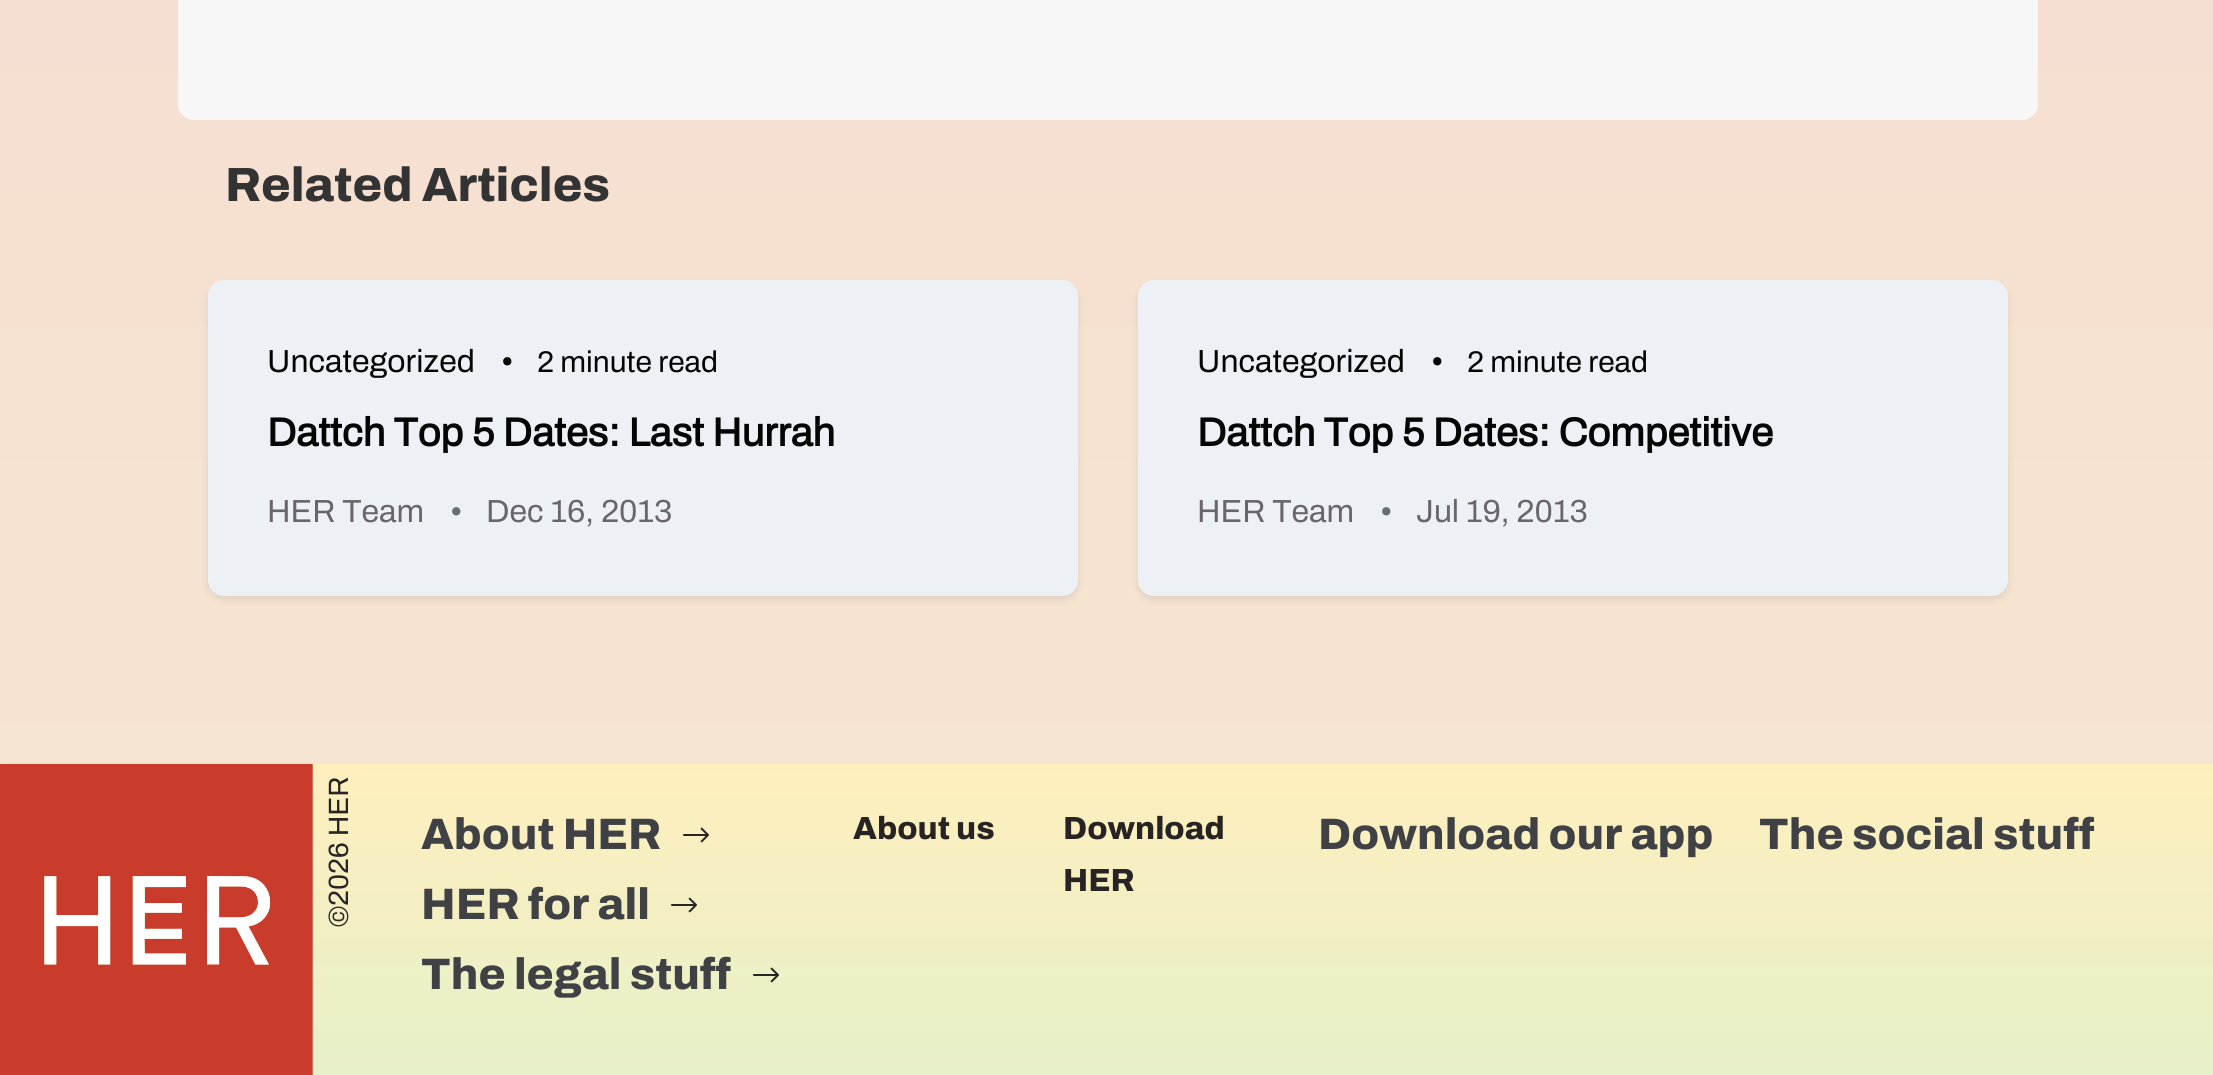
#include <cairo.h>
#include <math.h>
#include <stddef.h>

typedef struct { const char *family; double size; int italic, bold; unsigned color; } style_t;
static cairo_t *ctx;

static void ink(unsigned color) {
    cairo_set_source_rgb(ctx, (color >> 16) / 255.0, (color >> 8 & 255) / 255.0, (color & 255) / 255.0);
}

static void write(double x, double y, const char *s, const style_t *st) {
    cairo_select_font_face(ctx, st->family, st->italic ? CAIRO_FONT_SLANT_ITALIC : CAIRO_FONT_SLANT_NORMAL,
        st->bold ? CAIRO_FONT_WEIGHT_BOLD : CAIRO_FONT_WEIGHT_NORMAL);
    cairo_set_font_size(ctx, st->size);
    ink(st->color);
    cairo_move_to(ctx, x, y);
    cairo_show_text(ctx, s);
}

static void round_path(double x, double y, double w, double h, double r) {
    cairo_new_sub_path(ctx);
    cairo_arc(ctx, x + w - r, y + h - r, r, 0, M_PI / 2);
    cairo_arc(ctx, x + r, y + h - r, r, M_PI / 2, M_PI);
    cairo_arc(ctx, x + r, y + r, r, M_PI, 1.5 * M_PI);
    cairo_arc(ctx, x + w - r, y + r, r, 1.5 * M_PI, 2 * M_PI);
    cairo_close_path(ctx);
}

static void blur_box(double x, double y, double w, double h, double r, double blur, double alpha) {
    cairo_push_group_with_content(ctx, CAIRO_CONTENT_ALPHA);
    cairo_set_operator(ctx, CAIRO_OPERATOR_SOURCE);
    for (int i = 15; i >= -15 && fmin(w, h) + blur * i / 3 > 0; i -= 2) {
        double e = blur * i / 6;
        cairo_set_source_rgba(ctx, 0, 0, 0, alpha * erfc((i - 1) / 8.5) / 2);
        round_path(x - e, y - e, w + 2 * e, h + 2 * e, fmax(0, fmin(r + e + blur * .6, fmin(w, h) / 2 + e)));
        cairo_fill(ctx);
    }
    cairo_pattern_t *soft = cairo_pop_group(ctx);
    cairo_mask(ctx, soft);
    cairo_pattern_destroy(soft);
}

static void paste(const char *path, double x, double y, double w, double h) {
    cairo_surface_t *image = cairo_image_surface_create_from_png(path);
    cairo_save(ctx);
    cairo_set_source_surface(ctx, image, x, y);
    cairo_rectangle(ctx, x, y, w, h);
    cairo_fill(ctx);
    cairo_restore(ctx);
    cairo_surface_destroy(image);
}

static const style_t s1 = {"Archivo ExtraBold", 48, 0, 0, 0x333333};
static const style_t s2 = {"Archivo", 32, 0, 0, 0x030505};
static const style_t s3 = {"Archivo", 30, 0, 1, 0x030505};
static const style_t s4 = {"Archivo", 30, 0, 0, 0x030505};
static const style_t s5 = {"Archivo", 40, 0, 1, 0x030505};
static const style_t s6 = {"Archivo", 32, 0, 0, 0x68666b};
static const style_t s7 = {"Archivo", 30, 0, 1, 0x666f75};
static const style_t s8 = {"Archivo", 28, 0, 0, 0x282424};
static const style_t s9 = {"Archivo ExtraBold", 44, 0, 0, 0x404145};
static const style_t s10 = {"Archivo ExtraBold", 32, 0, 0, 0x282424};

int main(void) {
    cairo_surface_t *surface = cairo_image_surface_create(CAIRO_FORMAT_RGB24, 2213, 1075);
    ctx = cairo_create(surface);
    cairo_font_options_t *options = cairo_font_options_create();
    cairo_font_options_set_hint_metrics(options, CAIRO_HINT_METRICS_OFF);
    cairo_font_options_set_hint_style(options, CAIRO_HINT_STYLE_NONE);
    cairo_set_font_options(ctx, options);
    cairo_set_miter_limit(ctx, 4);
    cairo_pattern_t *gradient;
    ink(0xffffff);
    cairo_paint(ctx);
    gradient = cairo_pattern_create_linear(1107, -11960, 1107, 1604);
    cairo_pattern_add_color_stop_rgba(gradient, 0, 0.965, 0.922, 0.82, 1);
    cairo_pattern_add_color_stop_rgba(gradient, 0.07, 0.965, 0.878, 0.82, 1);
    cairo_pattern_add_color_stop_rgba(gradient, 0.17, 0.965, 0.82, 0.867, 1);
    cairo_pattern_add_color_stop_rgba(gradient, 0.3, 0.82, 0.867, 0.965, 1);
    cairo_pattern_add_color_stop_rgba(gradient, 0.42, 0.82, 0.957, 0.965, 1);
    cairo_pattern_add_color_stop_rgba(gradient, 0.54, 0.82, 0.878, 0.965, 1);
    cairo_pattern_add_color_stop_rgba(gradient, 0.66, 0.871, 0.82, 0.965, 1);
    cairo_pattern_add_color_stop_rgba(gradient, 0.78, 0.965, 0.82, 0.867, 1);
    cairo_pattern_add_color_stop_rgba(gradient, 0.89, 0.965, 0.878, 0.82, 1);
    cairo_pattern_add_color_stop_rgba(gradient, 1, 0.965, 0.922, 0.82, 1);
    cairo_set_source(ctx, gradient);
    cairo_pattern_destroy(gradient);
    cairo_rectangle(ctx, 0, 0, 2213, 764);
    cairo_fill(ctx);
    ink(0xf7f7f7);
    round_path(178, -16, 1860, 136, 16);
    cairo_fill(ctx);
    write(225, 201, "Related Articles", &s1);
    ink(0x606170);
    blur_box(208, 284, 870, 316, 16, 4, 0.16);
    ink(0xedf0f5);
    round_path(208, 280, 870, 316, 16);
    cairo_fill(ctx);
    write(267, 372, "Uncategorized", &s2);
    write(501, 372, "•", &s3);
    write(537, 372, "2 minute read", &s4);
    write(267, 446, "Dattch Top 5 Dates: Last Hurrah", &s5);
    write(267, 522, "HER Team", &s6);
    write(450, 522, "•", &s7);
    write(486, 522, "Dec 16, 2013", &s6);
    ink(0x606170);
    blur_box(1138, 284, 870, 316, 16, 4, 0.16);
    ink(0xedf0f5);
    round_path(1138, 280, 870, 316, 16);
    cairo_fill(ctx);
    write(1197, 372, "Uncategorized", &s2);
    write(1431, 372, "•", &s3);
    write(1467, 372, "2 minute read", &s4);
    write(1197, 446, "Dattch Top 5 Dates: Competitive", &s5);
    write(1197, 522, "HER Team", &s6);
    write(1380, 522, "•", &s7);
    write(1416, 522, "Jul 19, 2013", &s6);
    gradient = cairo_pattern_create_linear(1107, 764, 1107, 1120);
    cairo_pattern_add_color_stop_rgba(gradient, 0, 1, 0.937, 0.741, 1);
    cairo_pattern_add_color_stop_rgba(gradient, 1, 0.886, 0.941, 0.796, 1);
    cairo_set_source(ctx, gradient);
    cairo_pattern_destroy(gradient);
    cairo_rectangle(ctx, 0, 764, 2213, 311);
    cairo_fill(ctx);
    paste("pic1.png", 0, 764, 313, 311);
    cairo_save(ctx);
    cairo_translate(ctx, 348, 927);
    cairo_rotate(ctx, -90 * M_PI / 180);
    write(0, 0, "©2026 HER", &s8);
    cairo_restore(ctx);
    write(421, 849, "About HER", &s9);
    paste("pic2.png", 683, 827, 26, 16);
    write(853, 839, "About us", &s10);
    write(1063, 839, "Download", &s10);
    write(1063, 891, "HER", &s10);
    write(421, 919, "HER for all", &s9);
    paste("pic3.png", 671, 897, 26, 16);
    write(421, 989, "The legal stuff", &s9);
    paste("pic4.png", 753, 967, 26, 16);
    write(1318, 849, "Download our app", &s9);
    write(1759, 849, "The social stuff", &s9);
    cairo_surface_write_to_png(surface, "screenshot.png");
    cairo_font_options_destroy(options);
    cairo_destroy(ctx);
    cairo_surface_destroy(surface);
    return 0;
}
